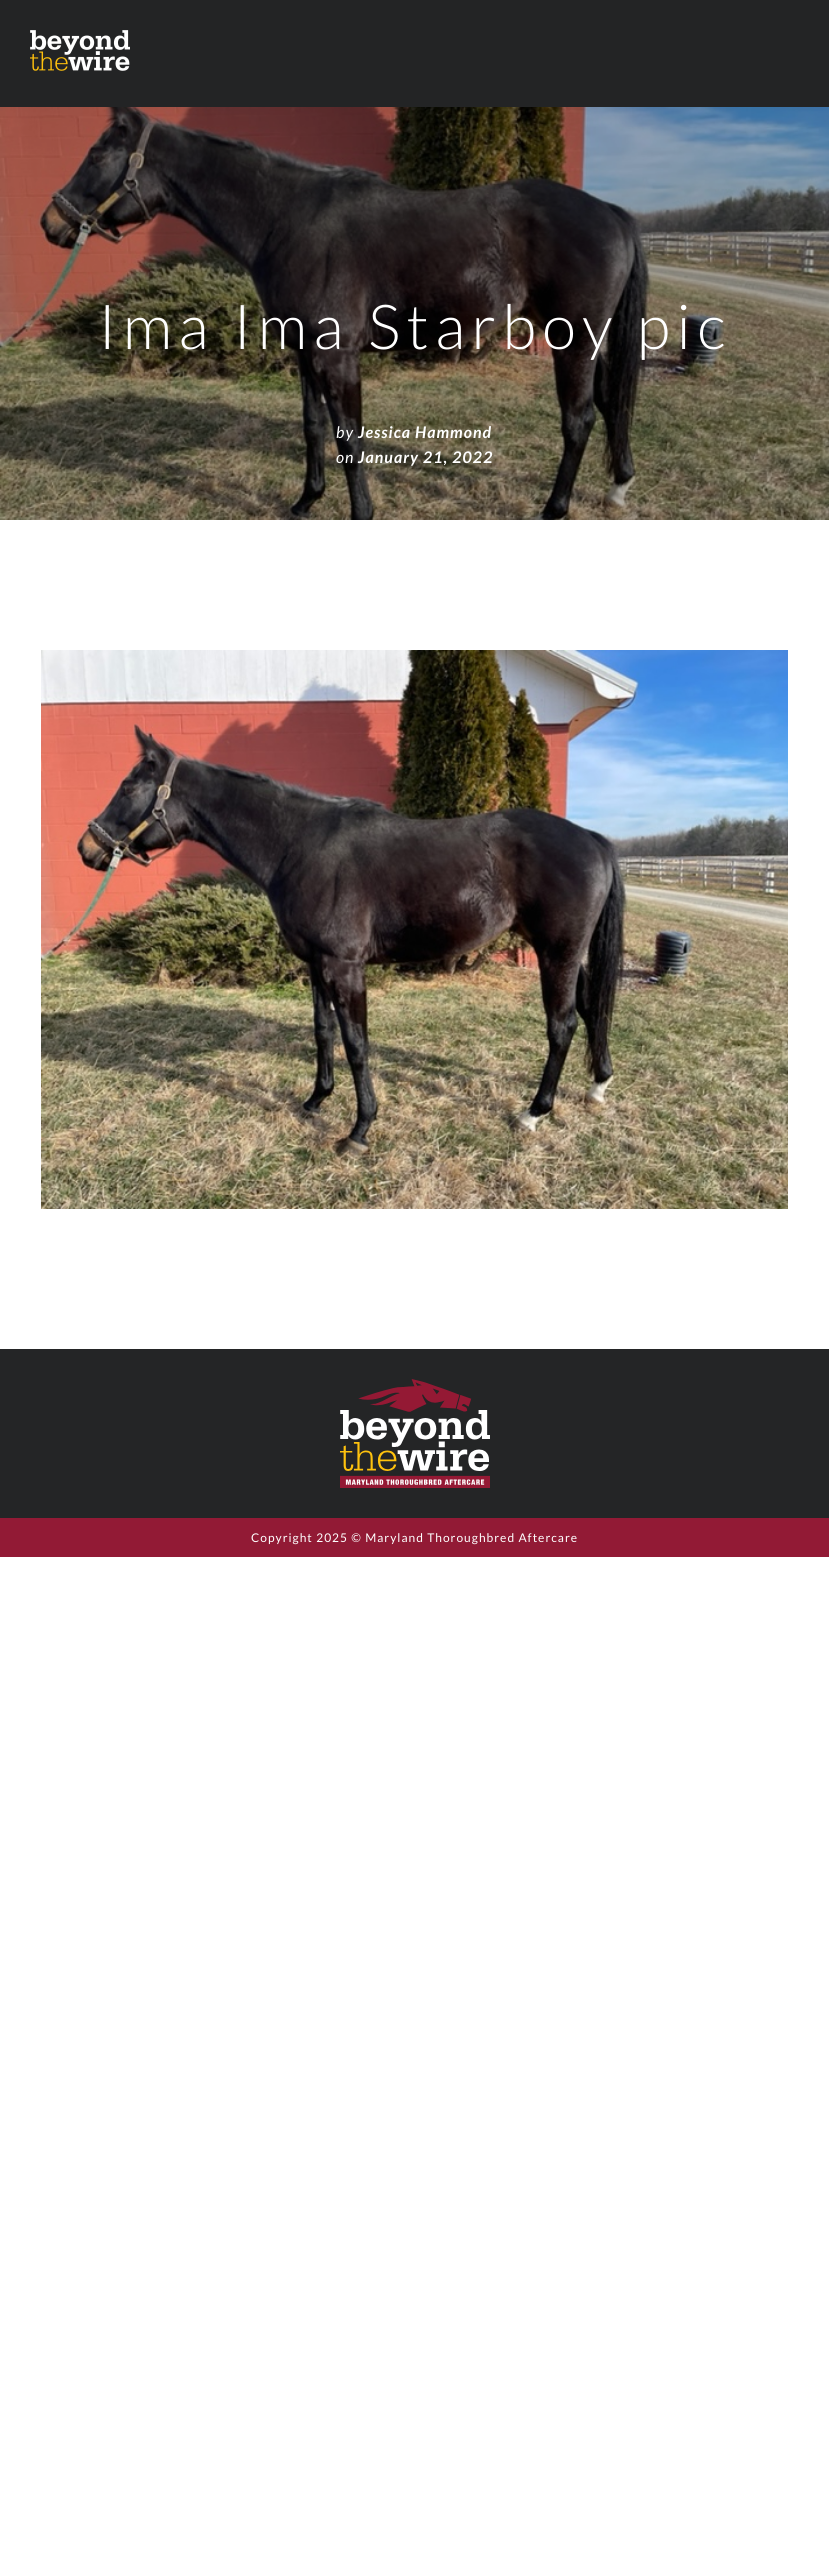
#include <cairo.h>
#include <math.h>
#include <stddef.h>

static cairo_t *ctx;

static void ink(unsigned color) {
    cairo_set_source_rgb(ctx, (color >> 16) / 255.0, (color >> 8 & 255) / 255.0, (color & 255) / 255.0);
}

static void write_spaced(double x, double y, const char *s, double letter, double word) {
    cairo_move_to(ctx, x, y);
    while (*s) {
        char ch[5] = {0};
        int n = 0;
        do ch[n++] = *s++; while ((*s & 0xC0) == 0x80);
        cairo_show_text(ctx, ch);
        cairo_rel_move_to(ctx, letter + word * (*ch == ' '), 0);
    }
}

static void block(double x, double y, double w, double h, unsigned color) {
    ink(color);
    cairo_rectangle(ctx, x, y, w, h);
    cairo_fill(ctx);
}

static void paste(const char *path, double x, double y, double w, double h) {
    cairo_surface_t *image = cairo_image_surface_create_from_png(path);
    cairo_save(ctx);
    cairo_set_source_surface(ctx, image, x, y);
    cairo_rectangle(ctx, x, y, w, h);
    cairo_fill(ctx);
    cairo_restore(ctx);
    cairo_surface_destroy(image);
}

int main(void) {
    cairo_surface_t *surface = cairo_image_surface_create(CAIRO_FORMAT_RGB24, 829, 2575);
    ctx = cairo_create(surface);
    cairo_font_options_t *options = cairo_font_options_create();
    cairo_font_options_set_hint_metrics(options, CAIRO_HINT_METRICS_OFF);
    cairo_font_options_set_hint_style(options, CAIRO_HINT_STYLE_NONE);
    cairo_set_font_options(ctx, options);
    cairo_set_miter_limit(ctx, 4);
    ink(0xffffff);
    cairo_paint(ctx);
    block(0, 0, 829, 107, 0x232425);
    paste("pic1.png", 30, 30, 100, 41);
    paste("pic2.png", 0, 107, 829, 413);
    cairo_select_font_face(ctx, "Lato Light", CAIRO_FONT_SLANT_NORMAL, CAIRO_FONT_WEIGHT_NORMAL);
    cairo_set_font_size(ctx, 62);
    ink(0xffffff);
    write_spaced(98, 349, "Ima Ima Starboy pic", 6.25, 0);
    cairo_select_font_face(ctx, "Lato", CAIRO_FONT_SLANT_ITALIC, CAIRO_FONT_WEIGHT_NORMAL);
    cairo_set_font_size(ctx, 16);
    write_spaced(336, 438, "by", 1, 0);
    cairo_select_font_face(ctx, "Lato", CAIRO_FONT_SLANT_ITALIC, CAIRO_FONT_WEIGHT_BOLD);
    write_spaced(358, 438, "Jessica Hammond", 1, 0);
    cairo_select_font_face(ctx, "Lato", CAIRO_FONT_SLANT_ITALIC, CAIRO_FONT_WEIGHT_NORMAL);
    write_spaced(336, 463, "on", 1, 0);
    cairo_select_font_face(ctx, "Lato", CAIRO_FONT_SLANT_ITALIC, CAIRO_FONT_WEIGHT_BOLD);
    write_spaced(358, 463, "January 21, 2022", 1, 0);
    paste("pic3.png", 41, 650, 747, 559);
    block(0, 1349, 829, 169, 0x242526);
    paste("pic4.png", 340, 1379, 150, 109);
    block(0, 1518, 829, 39, 0x921a35);
    cairo_select_font_face(ctx, "Lato", CAIRO_FONT_SLANT_NORMAL, CAIRO_FONT_WEIGHT_NORMAL);
    cairo_set_font_size(ctx, 12);
    ink(0xffffff);
    write_spaced(251, 1542, "Copyright 2025 © Maryland Thoroughbred Aftercare", 1, 0);
    cairo_surface_write_to_png(surface, "screenshot.png");
    cairo_font_options_destroy(options);
    cairo_destroy(ctx);
    cairo_surface_destroy(surface);
    return 0;
}
